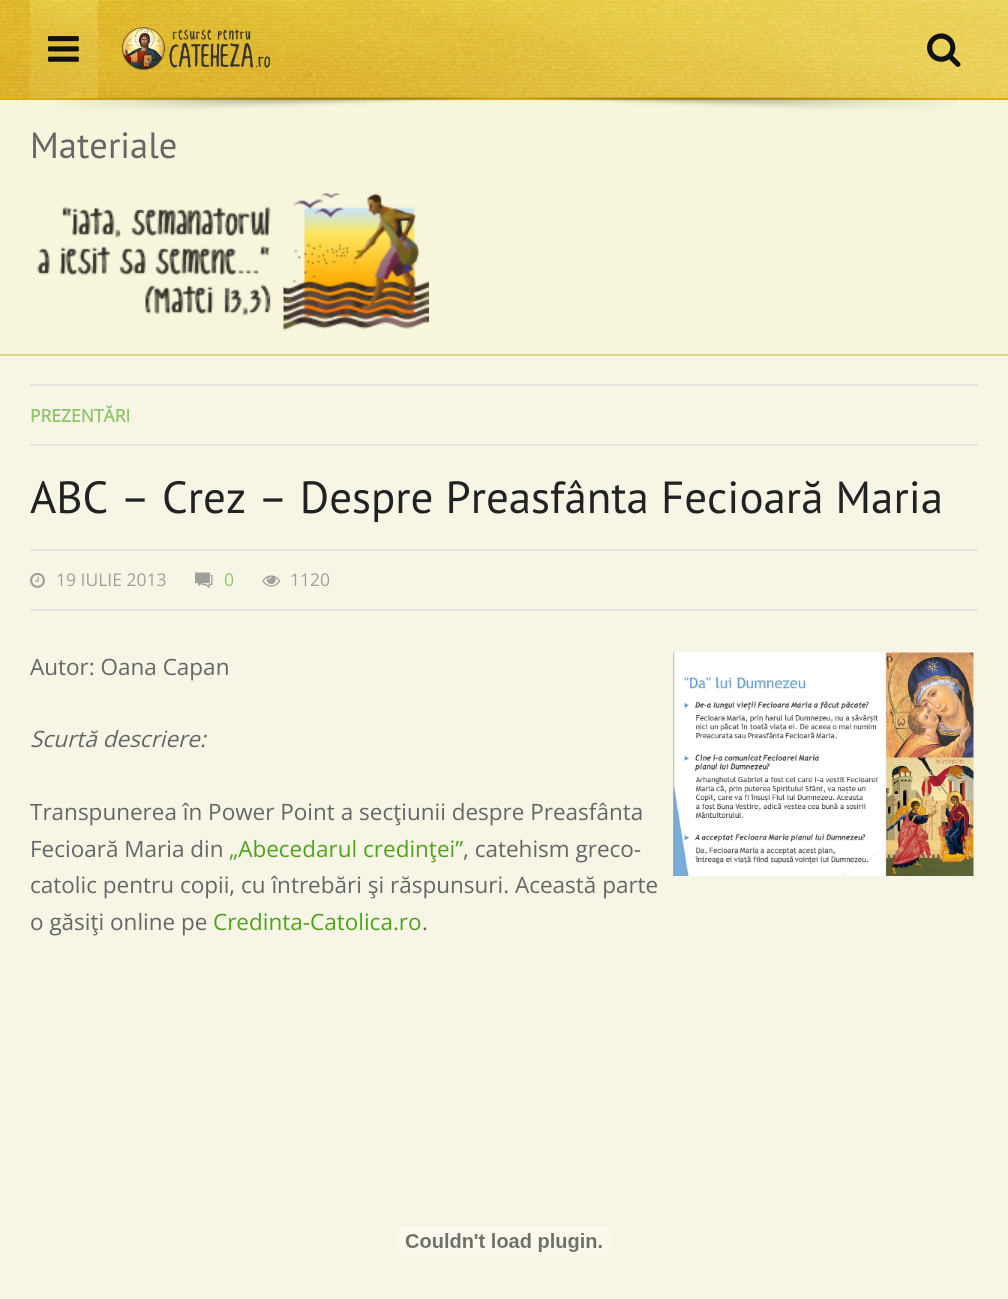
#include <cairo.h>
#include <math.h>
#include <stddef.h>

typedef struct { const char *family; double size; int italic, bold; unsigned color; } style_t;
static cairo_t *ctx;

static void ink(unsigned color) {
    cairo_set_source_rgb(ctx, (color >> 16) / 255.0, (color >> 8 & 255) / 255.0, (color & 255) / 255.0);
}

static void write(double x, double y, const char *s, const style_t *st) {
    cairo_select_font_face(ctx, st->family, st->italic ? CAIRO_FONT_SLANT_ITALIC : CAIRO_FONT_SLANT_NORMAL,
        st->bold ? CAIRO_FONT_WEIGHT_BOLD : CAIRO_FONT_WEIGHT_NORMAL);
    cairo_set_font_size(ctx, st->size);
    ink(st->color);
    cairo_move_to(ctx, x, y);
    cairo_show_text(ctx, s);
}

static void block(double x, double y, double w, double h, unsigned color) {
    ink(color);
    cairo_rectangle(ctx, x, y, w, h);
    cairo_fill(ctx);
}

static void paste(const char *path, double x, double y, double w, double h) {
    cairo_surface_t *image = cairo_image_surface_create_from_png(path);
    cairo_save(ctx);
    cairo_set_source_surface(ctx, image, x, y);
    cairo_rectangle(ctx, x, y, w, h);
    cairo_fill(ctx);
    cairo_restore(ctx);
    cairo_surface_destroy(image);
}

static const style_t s1 = {"PT Sans", 36.5, 0, 0, 0x666666};
static const style_t s2 = {"Open Sans", 17.5, 0, 1, 0x92c46c};
static const style_t s3 = {"PT Sans", 45, 0, 0, 0x222222};
static const style_t s4 = {"Open Sans", 17.5, 0, 0, 0xa0a099};
static const style_t s5 = {"Open Sans", 17.5, 0, 0, 0x92c46c};
static const style_t s6 = {"Open Sans", 22.5, 0, 0, 0x666666};
static const style_t s7 = {"Open Sans", 22.5, 1, 0, 0x666666};
static const style_t s8 = {"Open Sans", 22.5, 0, 0, 0x4ea31a};

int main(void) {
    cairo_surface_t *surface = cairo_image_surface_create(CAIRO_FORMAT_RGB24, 1008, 1299);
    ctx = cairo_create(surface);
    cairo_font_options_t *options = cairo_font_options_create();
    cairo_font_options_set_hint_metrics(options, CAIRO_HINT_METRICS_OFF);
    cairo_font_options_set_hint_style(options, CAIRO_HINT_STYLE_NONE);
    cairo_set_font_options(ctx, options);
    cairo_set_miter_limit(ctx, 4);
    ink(0xf7f6e6);
    cairo_paint(ctx);
    paste("pic1.png", 0, 0, 1008, 98);
    block(0, 98, 1008, 2, 0xe0ac00);
    block(0, 100, 1008, 254, 0xf7f6dc);
    paste("pic6.png", 55, 97, 903, 13);
    block(30, 0, 68, 98, 0xe1bd42);
    paste("pic2.png", 30, 0, 68, 98);
    paste("pic3.png", 48, 36, 31, 26);
    paste("pic4.png", 121, 27, 150, 44);
    paste("pic5.png", 927, 33, 34, 34);
    block(0, 354, 1008, 2, 0xd8d786);
    write(30, 158, "Materiale", &s1);
    paste("pic7.png", 37, 193, 392, 138);
    block(30, 384, 948, 2, 0xe3e3e3);
    block(30, 444, 948, 2, 0xe3e3e3);
    write(30, 422, "PREZENTĂRI", &s2);
    write(30, 513, "ABC – Crez – Despre Preasfânta Fecioară Maria", &s3);
    block(30, 549, 948, 2, 0xe3e3e3);
    block(30, 609, 948, 2, 0xe3e3e3);
    paste("pic8.png", 30, 572, 15, 16);
    write(56, 586, "19 IULIE 2013", &s4);
    paste("pic9.png", 195, 572, 18, 16);
    write(224, 586, "0", &s5);
    paste("pic10.png", 262, 575, 18, 12);
    write(290, 586, "1120", &s4);
    write(30, 675, "Autor: Oana Capan", &s6);
    paste("pic11.png", 673, 652, 301, 224);
    write(30, 747, "Scurtă descriere:", &s7);
    write(30, 820, "Transpunerea în Power Point a secţiunii despre Preasfânta", &s6);
    write(30, 857, "Fecioară Maria din", &s6);
    write(229, 857, "„Abecedarul credinţei”", &s8);
    write(463, 857, ", catehism greco-", &s6);
    write(30, 893, "catolic pentru copii, cu întrebări şi răspunsuri. Această parte", &s6);
    write(30, 930, "o găsiţi online pe", &s6);
    write(213, 930, "Credinta-Catolica.ro", &s8);
    write(422, 930, ".", &s6);
    paste("pic12.png", 396, 1227, 216, 27);
    cairo_surface_write_to_png(surface, "screenshot.png");
    cairo_font_options_destroy(options);
    cairo_destroy(ctx);
    cairo_surface_destroy(surface);
    return 0;
}
